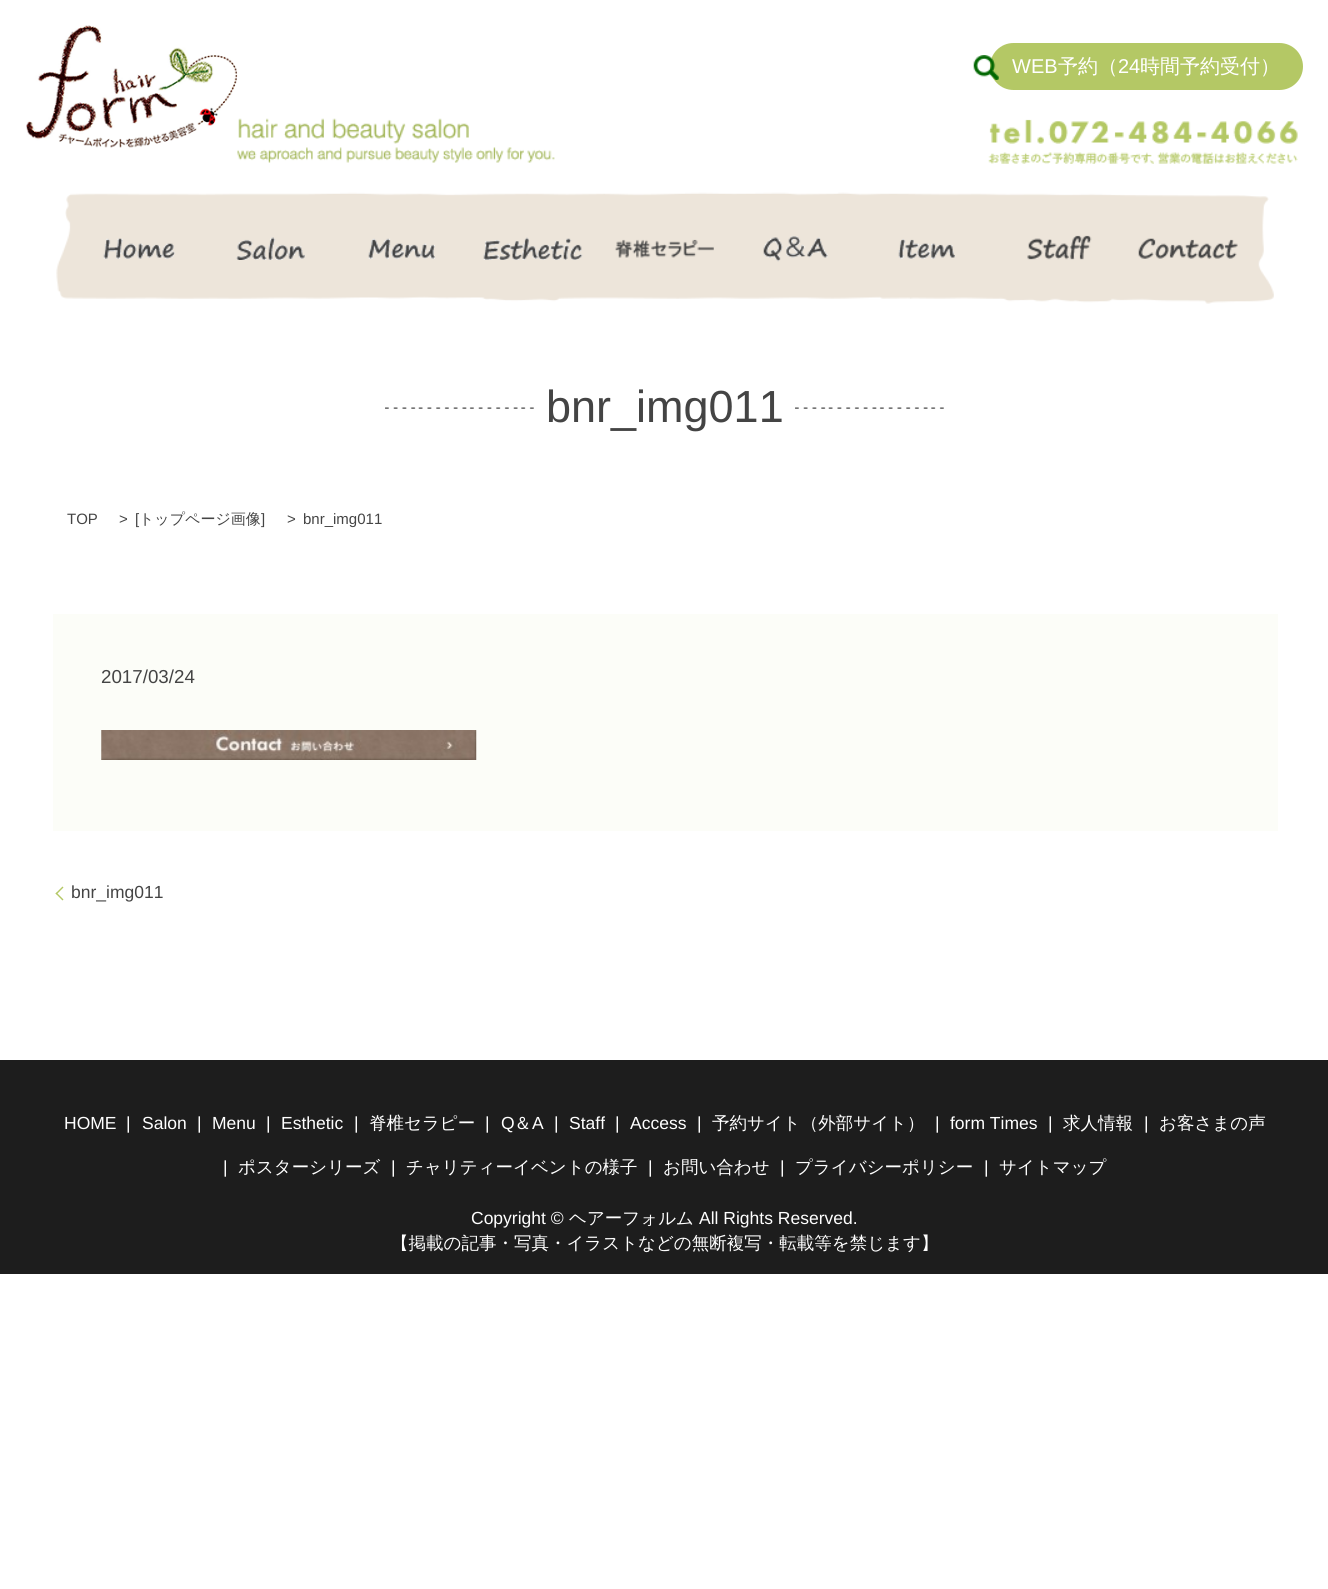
#include <cairo.h>
#include <math.h>
#include <stddef.h>

typedef struct { const char *family; double size; int italic, bold; unsigned color; } style_t;
static cairo_t *ctx;

static void ink(unsigned color) {
    cairo_set_source_rgb(ctx, (color >> 16) / 255.0, (color >> 8 & 255) / 255.0, (color & 255) / 255.0);
}

static void write(double x, double y, const char *s, const style_t *st) {
    cairo_select_font_face(ctx, st->family, st->italic ? CAIRO_FONT_SLANT_ITALIC : CAIRO_FONT_SLANT_NORMAL,
        st->bold ? CAIRO_FONT_WEIGHT_BOLD : CAIRO_FONT_WEIGHT_NORMAL);
    cairo_set_font_size(ctx, st->size);
    ink(st->color);
    cairo_move_to(ctx, x, y);
    cairo_show_text(ctx, s);
}

static void block(double x, double y, double w, double h, unsigned color) {
    ink(color);
    cairo_rectangle(ctx, x, y, w, h);
    cairo_fill(ctx);
}

static void round_path(double x, double y, double w, double h, double r) {
    cairo_new_sub_path(ctx);
    cairo_arc(ctx, x + w - r, y + h - r, r, 0, M_PI / 2);
    cairo_arc(ctx, x + r, y + h - r, r, M_PI / 2, M_PI);
    cairo_arc(ctx, x + r, y + r, r, M_PI, 1.5 * M_PI);
    cairo_arc(ctx, x + w - r, y + r, r, 1.5 * M_PI, 2 * M_PI);
    cairo_close_path(ctx);
}

static void paste(const char *path, double x, double y, double w, double h) {
    cairo_surface_t *image = cairo_image_surface_create_from_png(path);
    cairo_save(ctx);
    cairo_set_source_surface(ctx, image, x, y);
    cairo_rectangle(ctx, x, y, w, h);
    cairo_fill(ctx);
    cairo_restore(ctx);
    cairo_surface_destroy(image);
}

static const style_t s1 = {"Liberation Sans", 20, 0, 0, 0xffffff};
static const style_t s2 = {"WenQuanYi Zen Hei Medium", 20, 0, 0, 0xffffff};
static const style_t s3 = {"Liberation Sans", 45, 0, 0, 0x444444};
static const style_t s4 = {"Liberation Sans", 15, 0, 0, 0x444444};
static const style_t s5 = {"WenQuanYi Zen Hei Medium", 15, 0, 0, 0x444444};
static const style_t s6 = {"Liberation Sans", 18.75, 0, 0, 0x444444};
static const style_t s7 = {"Liberation Sans", 17.5, 0, 0, 0x444444};
static const style_t s8 = {"Liberation Sans", 17.5, 0, 0, 0xffffff};
static const style_t s9 = {"WenQuanYi Zen Hei Medium", 17.5, 0, 0, 0xffffff};

int main(void) {
    cairo_surface_t *surface = cairo_image_surface_create(CAIRO_FORMAT_RGB24, 1328, 1589);
    ctx = cairo_create(surface);
    cairo_font_options_t *options = cairo_font_options_create();
    cairo_font_options_set_hint_metrics(options, CAIRO_HINT_METRICS_OFF);
    cairo_font_options_set_hint_style(options, CAIRO_HINT_STYLE_NONE);
    cairo_set_font_options(ctx, options);
    cairo_set_miter_limit(ctx, 4);
    ink(0xffffff);
    cairo_paint(ctx);
    paste("pic2.png", 237, 118, 318, 45);
    paste("pic1.png", 26, 25, 212, 123);
    paste("pic3.png", 56, 192, 1218, 112);
    ink(0xb4c865);
    round_path(990, 43, 313, 47, 23.5);
    cairo_fill(ctx);
    paste("pic4.png", 973, 55, 26, 25);
    write(1012, 73, "WEB", &s1);
    write(1058, 73, "予約（", &s2);
    write(1118, 73, "24", &s1);
    write(1140, 73, "時間予約受付）", &s2);
    paste("pic5.png", 103, 238, 72, 21);
    paste("pic6.png", 236, 237, 69, 23);
    paste("pic7.png", 368, 238, 67, 21);
    paste("pic8.png", 483, 237, 100, 23);
    paste("pic9.png", 615, 239, 99, 19);
    paste("pic10.png", 763, 236, 65, 26);
    paste("pic11.png", 898, 239, 57, 20);
    paste("pic12.png", 1027, 235, 65, 25);
    paste("pic13.png", 1138, 238, 100, 21);
    paste("pic14.png", 988, 119, 310, 45);
    paste("pic15.png", 385, 407, 149, 2);
    write(546, 422, "bnr_img011", &s3);
    paste("pic16.png", 795, 407, 149, 2);
    write(67, 524, "TOP", &s4);
    write(119, 524, ">", &s4);
    write(135, 524, "[", &s4);
    write(139, 524, "トップページ画像", &s5);
    write(261, 524, "]", &s4);
    write(287, 524, ">", &s4);
    write(303, 524, "bnr_img011", &s4);
    block(53, 614, 1225, 217, 0xfcfdf8);
    write(101, 683, "2017/03/24", &s6);
    paste("pic17.png", 101, 730, 376, 30);
    ink(0xb4c865);
    cairo_new_path(ctx);
    cairo_move_to(ctx, 55.5, 893.5);
    cairo_line_to(ctx, 62.5, 886.5);
    cairo_line_to(ctx, 63.5, 887.5);
    cairo_line_to(ctx, 56.5, 894.5);
    cairo_close_path(ctx);
    cairo_fill(ctx);
    write(71, 898, "bnr_img011", &s7);
    ink(0xb4c865);
    cairo_new_path(ctx);
    cairo_move_to(ctx, 62.5, 900.5);
    cairo_line_to(ctx, 55.5, 893.5);
    cairo_line_to(ctx, 56.5, 892.5);
    cairo_line_to(ctx, 63.5, 899.5);
    cairo_close_path(ctx);
    cairo_fill(ctx);
    block(0, 1060, 1328, 214, 0x1d1d1d);
    write(64, 1129, "HOME", &s8);
    write(126, 1129, "|", &s8);
    write(142, 1129, "Salon", &s8);
    write(197, 1129, "|", &s8);
    write(212, 1129, "Menu", &s8);
    write(266, 1129, "|", &s8);
    write(281, 1129, "Esthetic", &s8);
    write(354, 1129, "|", &s8);
    write(369, 1129, "脊椎セラピー", &s9);
    write(485, 1129, "|", &s8);
    write(501, 1129, "Q", &s8);
    write(514, 1129, "＆", &s9);
    write(532, 1129, "A", &s8);
    write(554, 1129, "|", &s8);
    write(569, 1129, "Staff", &s8);
    write(615, 1129, "|", &s8);
    write(630, 1129, "Access", &s8);
    write(697, 1129, "|", &s8);
    write(712, 1129, "予約サイト（外部サイト）", &s9);
    write(935, 1129, "|", &s8);
    write(950, 1129, "form Times", &s8);
    write(1048, 1129, "|", &s8);
    write(1063, 1129, "求人情報", &s9);
    write(1144, 1129, "|", &s8);
    write(1159, 1129, "お客さまの声", &s9);
    write(223, 1173, "|", &s8);
    write(238, 1173, "ポスターシリーズ", &s9);
    write(391, 1173, "|", &s8);
    write(406, 1173, "チャリティーイベントの様子", &s9);
    write(648, 1173, "|", &s8);
    write(663, 1173, "お問い合わせ", &s9);
    write(780, 1173, "|", &s8);
    write(795, 1173, "プライバシーポリシー", &s9);
    write(984, 1173, "|", &s8);
    write(999, 1173, "サイトマップ", &s9);
    write(471, 1224, "Copyright ©", &s8);
    write(569, 1224, "ヘアーフォルム", &s9);
    write(699, 1224, "All Rights Reserved.", &s8);
    write(391, 1249, "【掲載の記事・写真・イラストなどの無断複写・転載等を禁じます】", &s9);
    cairo_surface_write_to_png(surface, "screenshot.png");
    cairo_font_options_destroy(options);
    cairo_destroy(ctx);
    cairo_surface_destroy(surface);
    return 0;
}
